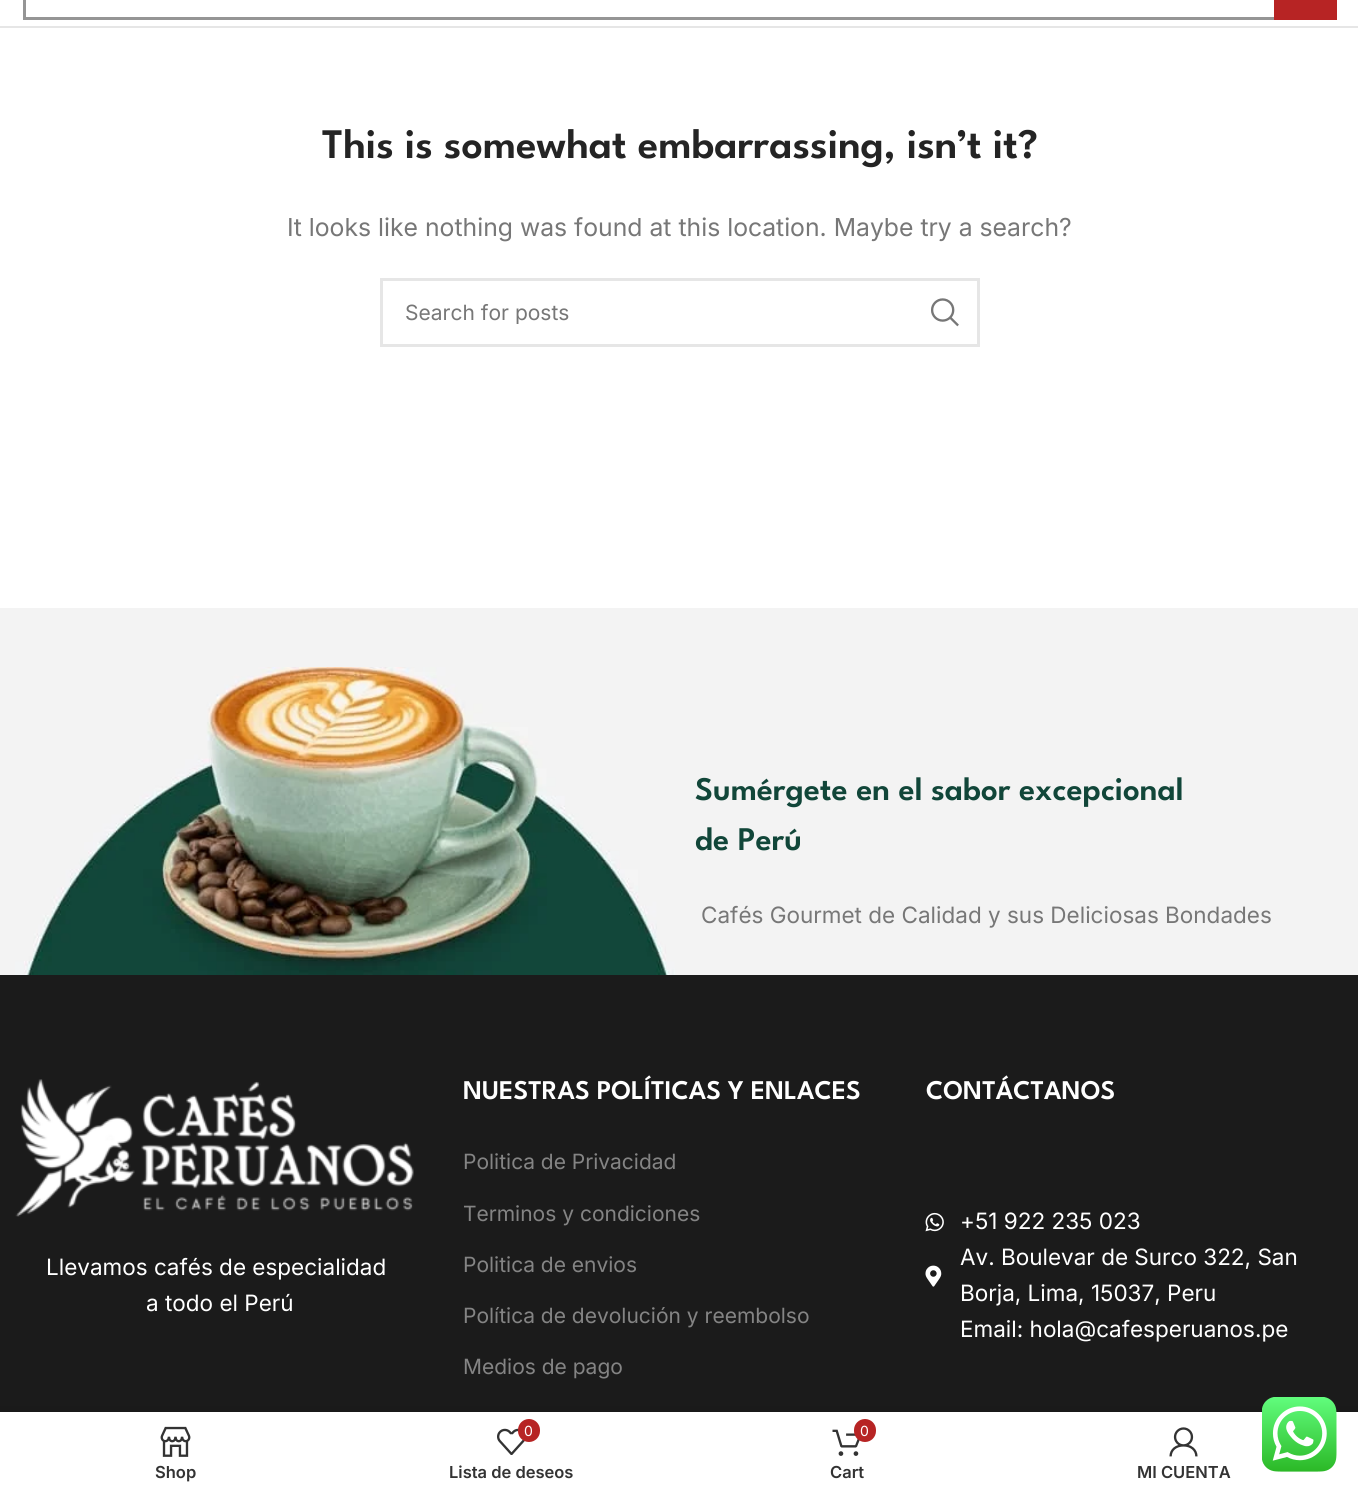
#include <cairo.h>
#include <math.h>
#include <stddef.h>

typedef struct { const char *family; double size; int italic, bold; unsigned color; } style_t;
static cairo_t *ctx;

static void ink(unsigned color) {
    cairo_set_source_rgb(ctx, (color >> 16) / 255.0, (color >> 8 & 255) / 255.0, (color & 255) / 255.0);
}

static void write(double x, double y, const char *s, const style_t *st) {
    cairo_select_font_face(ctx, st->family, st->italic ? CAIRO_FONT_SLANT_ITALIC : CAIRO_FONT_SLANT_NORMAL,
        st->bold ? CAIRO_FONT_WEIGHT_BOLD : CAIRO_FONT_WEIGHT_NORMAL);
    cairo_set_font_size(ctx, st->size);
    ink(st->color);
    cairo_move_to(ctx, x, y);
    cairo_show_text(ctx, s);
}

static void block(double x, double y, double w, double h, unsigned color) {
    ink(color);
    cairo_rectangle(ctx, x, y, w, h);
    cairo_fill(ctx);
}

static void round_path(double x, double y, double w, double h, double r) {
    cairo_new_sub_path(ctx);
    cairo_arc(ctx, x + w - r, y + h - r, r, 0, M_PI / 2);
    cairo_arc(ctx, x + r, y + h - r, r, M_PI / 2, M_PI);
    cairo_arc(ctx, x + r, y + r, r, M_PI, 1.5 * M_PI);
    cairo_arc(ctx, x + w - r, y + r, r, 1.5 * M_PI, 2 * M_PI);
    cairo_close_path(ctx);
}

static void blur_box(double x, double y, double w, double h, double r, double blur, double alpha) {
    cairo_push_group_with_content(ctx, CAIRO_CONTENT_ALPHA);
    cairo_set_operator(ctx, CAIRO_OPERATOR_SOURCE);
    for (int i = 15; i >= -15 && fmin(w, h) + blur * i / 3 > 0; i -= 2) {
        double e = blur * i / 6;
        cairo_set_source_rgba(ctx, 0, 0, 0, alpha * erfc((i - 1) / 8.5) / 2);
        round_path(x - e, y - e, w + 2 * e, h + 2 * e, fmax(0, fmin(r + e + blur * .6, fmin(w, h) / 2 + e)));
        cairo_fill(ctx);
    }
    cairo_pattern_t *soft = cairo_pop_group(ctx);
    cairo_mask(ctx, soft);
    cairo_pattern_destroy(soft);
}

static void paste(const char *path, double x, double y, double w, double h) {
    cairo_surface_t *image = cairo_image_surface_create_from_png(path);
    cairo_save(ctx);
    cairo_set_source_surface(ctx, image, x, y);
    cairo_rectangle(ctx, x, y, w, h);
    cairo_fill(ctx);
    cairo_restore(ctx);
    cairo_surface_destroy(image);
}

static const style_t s1 = {"League Spartan SemiBold", 42, 0, 0, 0x242424};
static const style_t s2 = {"Inter", 24.75, 0, 0, 0x777777};
static const style_t s3 = {"Inter", 21, 0, 0, 0x777777};
static const style_t s4 = {"League Spartan SemiBold", 33, 0, 0, 0x114639};
static const style_t s5 = {"Inter", 22.5, 0, 0, 0x777777};
static const style_t s6 = {"Inter", 22.5, 0, 0, 0xffffff};
static const style_t s7 = {"League Spartan SemiBold", 27, 0, 0, 0xffffff};
static const style_t s8 = {"Inter", 21, 0, 0, 0x848484};
static const style_t s9 = {"Inter SemiBold", 16.5, 0, 0, 0x333333};
static const style_t s10 = {"Inter", 14, 0, 0, 0xffffff};

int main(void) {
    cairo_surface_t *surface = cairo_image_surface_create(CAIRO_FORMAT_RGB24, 1358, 1494);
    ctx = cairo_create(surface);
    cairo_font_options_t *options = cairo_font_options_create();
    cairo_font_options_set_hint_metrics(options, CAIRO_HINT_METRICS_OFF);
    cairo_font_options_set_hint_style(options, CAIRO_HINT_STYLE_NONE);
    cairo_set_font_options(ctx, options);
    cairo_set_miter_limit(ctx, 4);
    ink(0xffffff);
    cairo_paint(ctx);
    block(0, 26, 1358, 2, 0xe6e6e6);
    cairo_rectangle(ctx, 24.5, -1.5, 1311, 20);
    ink(0x959595);
    cairo_set_line_width(ctx, 3);
    cairo_stroke(ctx);
    block(1274, 0, 63, 20, 0xb72424);
    write(322, 158, "This is somewhat embarrassing, isn’t it?", &s1);
    write(287, 236, "It looks like nothing was found at this location. Maybe try a search?", &s2);
    cairo_rectangle(ctx, 381.5, 279.5, 597, 66);
    ink(0xe6e6e6);
    cairo_stroke(ctx);
    cairo_save(ctx);
    cairo_rectangle(ctx, 405, 299, 503, 25);
    cairo_clip(ctx);
    write(405, 320, "Search for posts", &s3);
    cairo_restore(ctx);
    paste("pic1.png", 931, 298, 28, 29);
    block(0, 608, 1358, 367, 0xf3f3f3);
    paste("pic2.png", 15, 667, 665, 308);
    write(695, 800, "Sumérgete en el sabor excepcional", &s4);
    write(695, 850, "de Perú", &s4);
    write(701, 923, "Cafés Gourmet de Calidad y sus Deliciosas Bondades", &s5);
    block(0, 975, 1358, 437, 0x1b1b1b);
    paste("pic3.png", 15, 1079, 399, 138);
    write(46, 1275, "Llevamos cafés de especialidad", &s6);
    write(146, 1311, "a todo el Perú", &s6);
    write(463, 1099, "NUESTRAS POLÍTICAS Y ENLACES", &s7);
    write(463, 1169, "Politica de Privacidad", &s8);
    write(463, 1221, "Terminos y condiciones", &s8);
    write(463, 1272, "Politica de envios", &s8);
    write(463, 1323, "Política de devolución y reembolso", &s8);
    write(463, 1374, "Medios de pago", &s8);
    write(926, 1099, "CONTÁCTANOS", &s7);
    paste("pic4.png", 925, 1212, 19, 20);
    write(960, 1229, "+51 922 235 023", &s6);
    paste("pic5.png", 925, 1265, 17, 22);
    write(960, 1265, "Av. Boulevar de Surco 322, San", &s6);
    write(960, 1301, "Borja, Lima, 15037, Peru", &s6);
    write(960, 1337, "Email: hola@cafesperuanos.pe", &s6);
    ink(0x000000);
    blur_box(0, 1412, 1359, 82, 0, 7, 0.12);
    block(0, 1412, 1358, 82, 0xffffff);
    paste("pic6.png", 160, 1426, 31, 31);
    write(155, 1478, "Shop", &s9);
    paste("pic7.png", 497, 1428, 28, 27);
    ink(0xb72424);
    round_path(518, 1419, 22, 23, 11);
    cairo_fill(ctx);
    write(524, 1436, "0", &s10);
    write(449, 1478, "Lista de deseos", &s9);
    paste("pic8.png", 832, 1429, 28, 27);
    ink(0xb72424);
    round_path(854, 1419, 22, 23, 11);
    cairo_fill(ctx);
    write(860, 1436, "0", &s10);
    write(830, 1478, "Cart", &s9);
    paste("pic9.png", 1169, 1427, 29, 30);
    write(1137, 1478, "MI CUENTA", &s9);
    paste("pic10.png", 1262, 1397, 75, 75);
    cairo_surface_write_to_png(surface, "screenshot.png");
    cairo_font_options_destroy(options);
    cairo_destroy(ctx);
    cairo_surface_destroy(surface);
    return 0;
}
